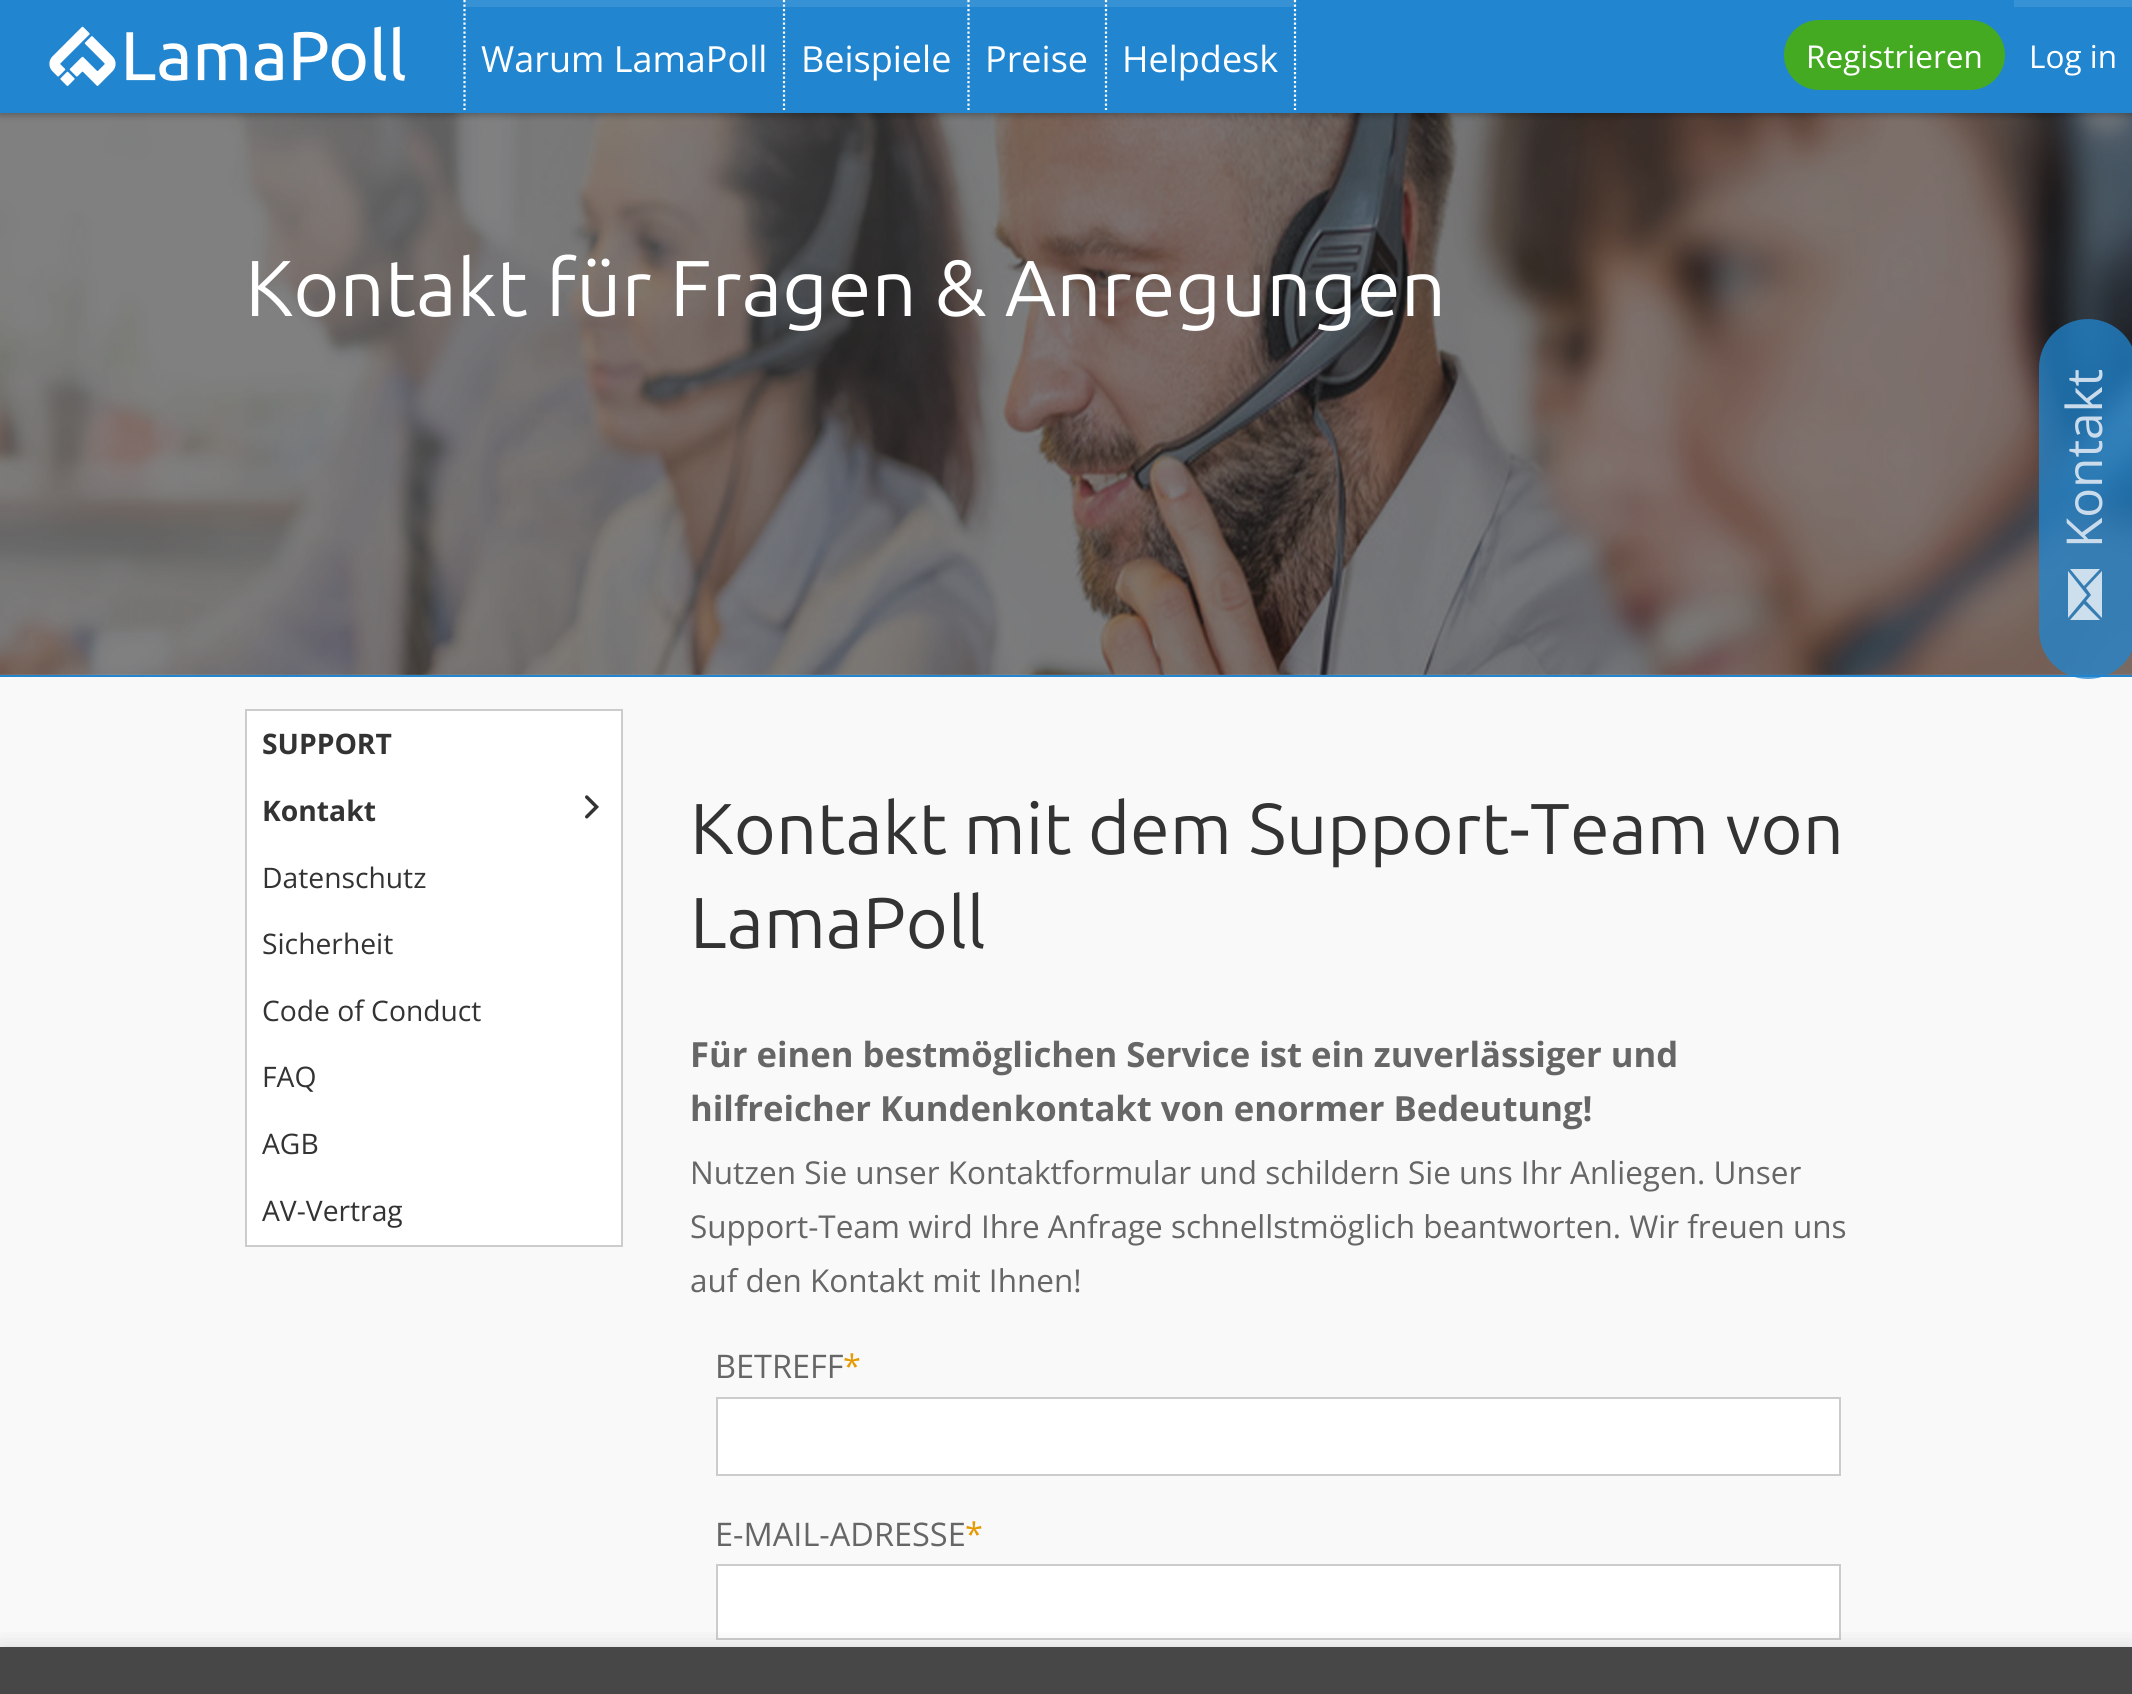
#include <cairo.h>
#include <math.h>
#include <stddef.h>

typedef struct { const char *family; double size; int italic, bold; unsigned color; } style_t;
static cairo_t *ctx;

static void ink(unsigned color) {
    cairo_set_source_rgb(ctx, (color >> 16) / 255.0, (color >> 8 & 255) / 255.0, (color & 255) / 255.0);
}

static void write(double x, double y, const char *s, const style_t *st) {
    cairo_select_font_face(ctx, st->family, st->italic ? CAIRO_FONT_SLANT_ITALIC : CAIRO_FONT_SLANT_NORMAL,
        st->bold ? CAIRO_FONT_WEIGHT_BOLD : CAIRO_FONT_WEIGHT_NORMAL);
    cairo_set_font_size(ctx, st->size);
    ink(st->color);
    cairo_move_to(ctx, x, y);
    cairo_show_text(ctx, s);
}

static void block(double x, double y, double w, double h, unsigned color) {
    ink(color);
    cairo_rectangle(ctx, x, y, w, h);
    cairo_fill(ctx);
}

static void round_path(double x, double y, double w, double h, double r) {
    cairo_new_sub_path(ctx);
    cairo_arc(ctx, x + w - r, y + h - r, r, 0, M_PI / 2);
    cairo_arc(ctx, x + r, y + h - r, r, M_PI / 2, M_PI);
    cairo_arc(ctx, x + r, y + r, r, M_PI, 1.5 * M_PI);
    cairo_arc(ctx, x + w - r, y + r, r, 1.5 * M_PI, 2 * M_PI);
    cairo_close_path(ctx);
}

static void blur_box(double x, double y, double w, double h, double r, double blur, double alpha) {
    cairo_push_group_with_content(ctx, CAIRO_CONTENT_ALPHA);
    cairo_set_operator(ctx, CAIRO_OPERATOR_SOURCE);
    for (int i = 15; i >= -15 && fmin(w, h) + blur * i / 3 > 0; i -= 2) {
        double e = blur * i / 6;
        cairo_set_source_rgba(ctx, 0, 0, 0, alpha * erfc((i - 1) / 8.5) / 2);
        round_path(x - e, y - e, w + 2 * e, h + 2 * e, fmax(0, fmin(r + e + blur * .6, fmin(w, h) / 2 + e)));
        cairo_fill(ctx);
    }
    cairo_pattern_t *soft = cairo_pop_group(ctx);
    cairo_mask(ctx, soft);
    cairo_pattern_destroy(soft);
}

static void paste(const char *path, double x, double y, double w, double h) {
    cairo_surface_t *image = cairo_image_surface_create_from_png(path);
    cairo_save(ctx);
    cairo_set_source_surface(ctx, image, x, y);
    cairo_rectangle(ctx, x, y, w, h);
    cairo_fill(ctx);
    cairo_restore(ctx);
    cairo_surface_destroy(image);
}

static const style_t s1 = {"Open Sans", 36, 0, 0, 0xffffff};
static const style_t s2 = {"Open Sans", 31.5, 0, 0, 0xffffff};
static const style_t s3 = {"Ubuntu", 79.25, 0, 0, 0xffffff};
static const style_t s4 = {"Open Sans", 28.25, 0, 1, 0x333333};
static const style_t s5 = {"Open Sans", 28.25, 0, 0, 0x333333};
static const style_t s6 = {"Ubuntu", 72, 0, 0, 0x333333};
static const style_t s7 = {"Open Sans", 34.65, 0, 1, 0x666666};
static const style_t s8 = {"Open Sans", 31.5, 0, 0, 0x666666};
static const style_t s9 = {"Open Sans", 32.5, 0, 0, 0x666666};
static const style_t s10 = {"Open Sans", 32.5, 0, 0, 0xe69900};
static const style_t s11 = {"Open Sans", 49.5, 0, 0, 0xcadceb};

int main(void) {
    cairo_surface_t *surface = cairo_image_surface_create(CAIRO_FORMAT_RGB24, 2132, 1694);
    ctx = cairo_create(surface);
    cairo_font_options_t *options = cairo_font_options_create();
    cairo_font_options_set_hint_metrics(options, CAIRO_HINT_METRICS_OFF);
    cairo_font_options_set_hint_style(options, CAIRO_HINT_STYLE_NONE);
    cairo_set_font_options(ctx, options);
    cairo_set_miter_limit(ctx, 4);
    ink(0xf9f9f9);
    cairo_paint(ctx);
    block(0, 1647, 2132, 47, 0x474747);
    paste("pic2.png", 0, 113, 2132, 562);
    ink(0x000000);
    blur_box(0, 2, 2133, 113, 0, 3.5, 0.3);
    block(0, 0, 2132, 113, 0x2185d0);
    paste("pic1.png", 49, 26, 357, 60);
    cairo_new_path(ctx);
    cairo_move_to(ctx, 784, 0);
    cairo_line_to(ctx, 784, 110);
    ink(0xffffff);
    cairo_set_line_width(ctx, 2.2);
    cairo_set_dash(ctx, (double[]){2.25, 2.25}, 2, 0);
    cairo_stroke(ctx);
    cairo_new_path(ctx);
    cairo_move_to(ctx, 464.5, 0);
    cairo_line_to(ctx, 464.5, 110);
    cairo_stroke(ctx);
    cairo_set_source_rgba(ctx, 1, 1, 1, 0.1);
    cairo_rectangle(ctx, 466, 0, 317, 7);
    cairo_fill(ctx);
    write(481, 72, "Warum LamaPoll", &s1);
    cairo_new_path(ctx);
    cairo_move_to(ctx, 968.5, 0);
    cairo_line_to(ctx, 968.5, 110);
    cairo_stroke(ctx);
    cairo_set_source_rgba(ctx, 1, 1, 1, 0.1);
    cairo_rectangle(ctx, 785, 0, 183, 7);
    cairo_fill(ctx);
    write(801, 72, "Beispiele", &s1);
    cairo_new_path(ctx);
    cairo_move_to(ctx, 1106, 0);
    cairo_line_to(ctx, 1106, 110);
    cairo_stroke(ctx);
    cairo_set_source_rgba(ctx, 1, 1, 1, 0.1);
    cairo_rectangle(ctx, 970, 0, 135, 7);
    cairo_fill(ctx);
    write(985, 72, "Preise", &s1);
    cairo_new_path(ctx);
    cairo_move_to(ctx, 1295, 0);
    cairo_line_to(ctx, 1295, 110);
    cairo_stroke(ctx);
    cairo_set_source_rgba(ctx, 1, 1, 1, 0.1);
    cairo_rectangle(ctx, 1107, 0, 187, 7);
    cairo_fill(ctx);
    write(1122, 72, "Helpdesk", &s1);
    ink(0x44aa22);
    round_path(1784, 20, 221, 70, 35);
    cairo_fill(ctx);
    write(1806, 68, "Registrieren", &s2);
    block(2014, 0, 118, 7, 0x3791d5);
    write(2029, 68, "Log in", &s2);
    write(245, 316, "Kontakt für Fragen & Anregungen", &s3);
    block(0, 675, 2132, 2, 0x2185d0);
    ink(0xffffff);
    cairo_rectangle(ctx, 246, 710, 376, 536);
    cairo_fill_preserve(ctx);
    ink(0xcccccc);
    cairo_set_line_width(ctx, 2);
    cairo_set_dash(ctx, NULL, 0, 0);
    cairo_stroke(ctx);
    write(262, 754, "SUPPORT", &s4);
    write(262, 821, "Kontakt", &s4);
    paste("pic3.png", 585, 795, 14, 24);
    write(262, 888, "Datenschutz", &s5);
    write(262, 954, "Sicherheit", &s5);
    write(262, 1021, "Code of Conduct", &s5);
    write(262, 1087, "FAQ", &s5);
    write(262, 1154, "AGB", &s5);
    write(262, 1221, "AV-Vertrag", &s5);
    write(690, 854, "Kontakt mit dem Support-Team von", &s6);
    write(690, 948, "LamaPoll", &s6);
    write(690, 1067, "Für einen bestmöglichen Service ist ein zuverlässiger und", &s7);
    write(690, 1121, "hilfreicher Kundenkontakt von enormer Bedeutung!", &s7);
    write(690, 1184, "Nutzen Sie unser Kontaktformular und schildern Sie uns Ihr Anliegen. Unser", &s8);
    write(690, 1238, "Support-Team wird Ihre Anfrage schnellstmöglich beantworten. Wir freuen uns", &s8);
    write(690, 1292, "auf den Kontakt mit Ihnen!", &s8);
    write(715, 1378, "BETREFF", &s9);
    write(843, 1378, "*", &s10);
    ink(0xffffff);
    cairo_rectangle(ctx, 717, 1398, 1123, 77);
    cairo_fill_preserve(ctx);
    ink(0xcccccc);
    cairo_stroke(ctx);
    write(715, 1546, "E-MAIL-ADRESSE", &s9);
    write(965, 1546, "*", &s10);
    ink(0xffffff);
    cairo_rectangle(ctx, 717, 1565, 1123, 74);
    cairo_fill_preserve(ctx);
    ink(0xcccccc);
    cairo_stroke(ctx);
    cairo_set_source_rgba(ctx, 0.129, 0.522, 0.816, 0.75);
    cairo_new_path(ctx);
    cairo_move_to(ctx, 2039, 630);
    cairo_line_to(ctx, 2039, 368);
    cairo_curve_to(ctx, 2039, 341, 2061, 319, 2088, 319);
    cairo_curve_to(ctx, 2115, 319, 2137, 341, 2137, 368);
    cairo_line_to(ctx, 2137, 630);
    cairo_curve_to(ctx, 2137, 657, 2115, 679, 2088, 679);
    cairo_curve_to(ctx, 2061, 679, 2039, 657, 2039, 630);
    cairo_close_path(ctx);
    cairo_fill(ctx);
    cairo_save(ctx);
    cairo_translate(ctx, 2102, 548);
    cairo_rotate(ctx, -90 * M_PI / 180);
    write(0, 0, "Kontakt", &s11);
    cairo_restore(ctx);
    ink(0xcddeec);
    cairo_new_path(ctx);
    cairo_move_to(ctx, 2099, 620);
    cairo_line_to(ctx, 2070, 620);
    cairo_line_to(ctx, 2084, 604);
    cairo_line_to(ctx, 2100, 620);
    cairo_close_path(ctx);
    cairo_move_to(ctx, 2068, 618);
    cairo_line_to(ctx, 2068, 571);
    cairo_line_to(ctx, 2087, 595);
    cairo_close_path(ctx);
    cairo_move_to(ctx, 2102, 618);
    cairo_line_to(ctx, 2086, 601);
    cairo_line_to(ctx, 2091, 595);
    cairo_line_to(ctx, 2086, 588);
    cairo_line_to(ctx, 2102, 571);
    cairo_close_path(ctx);
    cairo_move_to(ctx, 2084, 586);
    cairo_line_to(ctx, 2070, 569);
    cairo_line_to(ctx, 2100, 569);
    cairo_close_path(ctx);
    cairo_fill(ctx);
    cairo_save(ctx);
    cairo_rectangle(ctx, 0, 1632, 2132, 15);
    cairo_clip(ctx);
    ink(0x737373);
    blur_box(0, 1647, 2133, 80, 0, 11, 0.25);
    cairo_restore(ctx);
    cairo_surface_write_to_png(surface, "screenshot.png");
    cairo_font_options_destroy(options);
    cairo_destroy(ctx);
    cairo_surface_destroy(surface);
    return 0;
}
